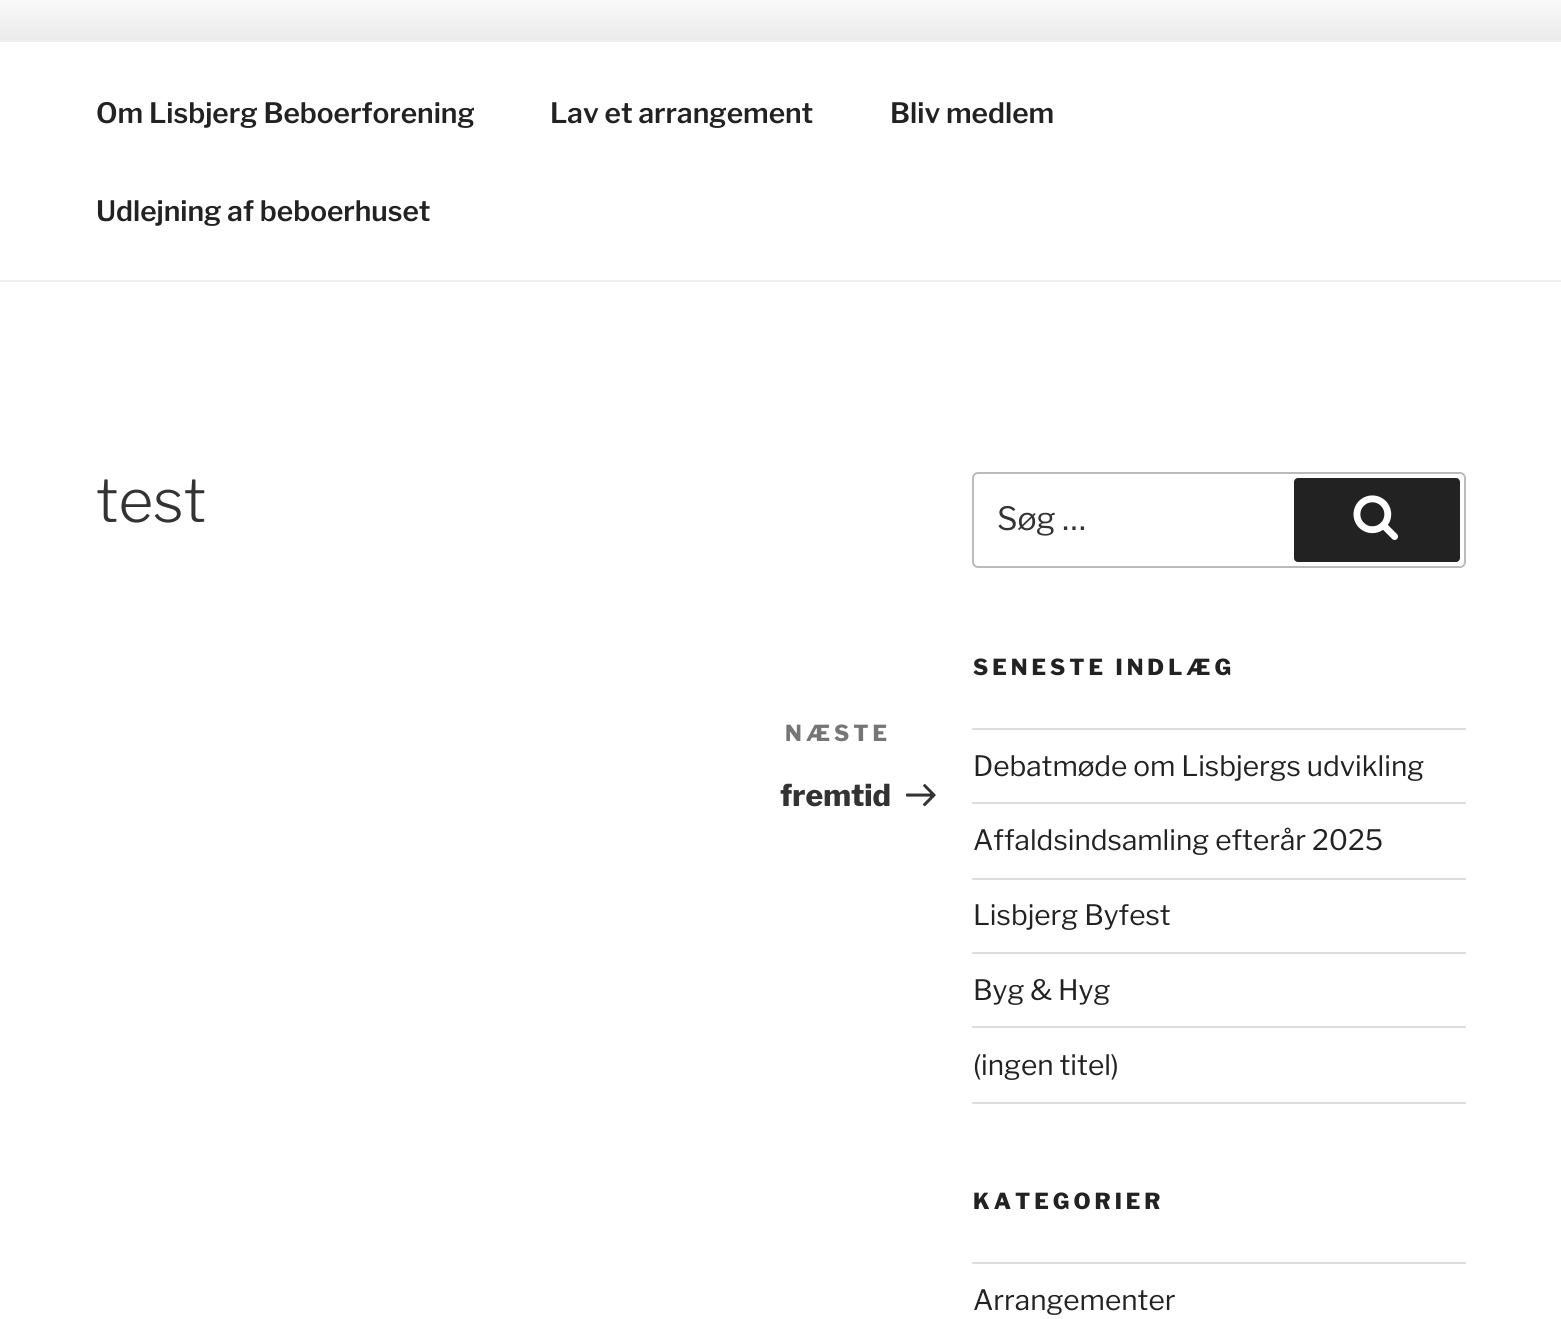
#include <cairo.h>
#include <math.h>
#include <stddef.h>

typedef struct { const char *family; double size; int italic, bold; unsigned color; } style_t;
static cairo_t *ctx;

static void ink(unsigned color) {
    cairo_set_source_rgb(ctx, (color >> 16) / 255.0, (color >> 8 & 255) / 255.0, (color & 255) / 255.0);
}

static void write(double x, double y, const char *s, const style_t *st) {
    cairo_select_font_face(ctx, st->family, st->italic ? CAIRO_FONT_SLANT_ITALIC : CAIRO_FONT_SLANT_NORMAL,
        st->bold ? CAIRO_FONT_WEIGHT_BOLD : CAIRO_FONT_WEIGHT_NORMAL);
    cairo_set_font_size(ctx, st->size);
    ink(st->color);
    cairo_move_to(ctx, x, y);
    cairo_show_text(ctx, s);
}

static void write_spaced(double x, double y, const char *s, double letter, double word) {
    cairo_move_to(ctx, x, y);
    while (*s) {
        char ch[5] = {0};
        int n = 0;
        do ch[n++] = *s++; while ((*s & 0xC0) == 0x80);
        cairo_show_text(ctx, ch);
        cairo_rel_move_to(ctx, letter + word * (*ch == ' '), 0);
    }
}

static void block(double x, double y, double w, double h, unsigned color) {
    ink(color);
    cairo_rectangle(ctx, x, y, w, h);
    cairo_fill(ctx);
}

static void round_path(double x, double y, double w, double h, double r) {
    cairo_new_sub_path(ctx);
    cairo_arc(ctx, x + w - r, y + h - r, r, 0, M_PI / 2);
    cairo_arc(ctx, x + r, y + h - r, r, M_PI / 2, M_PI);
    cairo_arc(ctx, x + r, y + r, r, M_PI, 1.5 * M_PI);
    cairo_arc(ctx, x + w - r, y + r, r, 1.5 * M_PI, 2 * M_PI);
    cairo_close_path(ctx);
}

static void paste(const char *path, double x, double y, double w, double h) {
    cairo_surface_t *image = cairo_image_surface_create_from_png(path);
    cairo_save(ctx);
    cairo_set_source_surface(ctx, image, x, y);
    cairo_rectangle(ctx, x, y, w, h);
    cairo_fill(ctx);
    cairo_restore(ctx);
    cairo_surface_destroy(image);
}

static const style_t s1 = {"Libre Franklin SemiBold", 28, 0, 0, 0x222222};
static const style_t s2 = {"Libre Franklin Light", 60, 0, 0, 0x333333};
static const style_t s3 = {"Libre Franklin ExtraBold", 30, 0, 0, 0x333333};
static const style_t s4 = {"Libre Franklin", 32, 0, 0, 0x333333};
static const style_t s5 = {"Libre Franklin", 28, 0, 0, 0x222222};

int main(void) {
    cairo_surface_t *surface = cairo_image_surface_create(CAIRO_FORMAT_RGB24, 1561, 1319);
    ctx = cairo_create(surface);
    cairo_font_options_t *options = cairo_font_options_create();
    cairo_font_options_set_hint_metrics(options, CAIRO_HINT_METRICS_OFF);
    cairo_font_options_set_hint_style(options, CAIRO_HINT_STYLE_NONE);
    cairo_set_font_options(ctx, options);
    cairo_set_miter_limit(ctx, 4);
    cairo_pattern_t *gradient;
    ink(0xffffff);
    cairo_paint(ctx);
    gradient = cairo_pattern_create_linear(781, 0, 781, 282);
    cairo_pattern_add_color_stop_rgba(gradient, 0, 0.976, 0.976, 0.976, 1);
    cairo_pattern_add_color_stop_rgba(gradient, 0.75, 0.682, 0.682, 0.682, 1);
    cairo_pattern_add_color_stop_rgba(gradient, 1, 0.682, 0.682, 0.682, 1);
    cairo_set_source(ctx, gradient);
    cairo_pattern_destroy(gradient);
    cairo_rectangle(ctx, 0, 0, 1561, 40);
    cairo_fill(ctx);
    block(0, 40, 1561, 2, 0xeeeeee);
    block(0, 280, 1561, 2, 0xeeeeee);
    write(96, 123, "Om Lisbjerg Beboerforening", &s1);
    write(550, 123, "Lav et arrangement", &s1);
    write(890, 123, "Bliv medlem", &s1);
    write(96, 221, "Udlejning af beboerhuset", &s1);
    write(96, 522, "test", &s2);
    cairo_select_font_face(ctx, "Libre Franklin ExtraBold", CAIRO_FONT_SLANT_NORMAL, CAIRO_FONT_WEIGHT_NORMAL);
    cairo_set_font_size(ctx, 22);
    ink(0x767676);
    write_spaced(785, 741, "NÆSTE", 4, 0);
    write(780, 806, "fremtid", &s3);
    paste("pic1.png", 906, 783, 30, 24);
    round_path(973, 473, 492, 94, 5);
    ink(0xbbbbbb);
    cairo_stroke(ctx);
    write(997, 530, "Søg …", &s4);
    ink(0x222222);
    round_path(1294, 478, 166, 84, 4);
    cairo_fill(ctx);
    paste("pic2.png", 1353, 495, 46, 45);
    cairo_select_font_face(ctx, "Libre Franklin ExtraBold", CAIRO_FONT_SLANT_NORMAL, CAIRO_FONT_WEIGHT_NORMAL);
    cairo_set_font_size(ctx, 22);
    write_spaced(973, 675, "SENESTE INDLÆG", 4, 0);
    block(972, 728, 494, 2, 0xdddddd);
    block(972, 802, 494, 2, 0xdddddd);
    write(973, 776, "Debatmøde om Lisbjergs udvikling", &s5);
    block(972, 878, 494, 2, 0xdddddd);
    write(973, 850, "Affaldsindsamling efterår 2025", &s5);
    block(972, 952, 494, 2, 0xdddddd);
    write(973, 925, "Lisbjerg Byfest", &s5);
    block(972, 1026, 494, 2, 0xdddddd);
    write(973, 1000, "Byg & Hyg", &s5);
    block(972, 1102, 494, 2, 0xdddddd);
    write(973, 1075, "(ingen titel)", &s5);
    cairo_select_font_face(ctx, "Libre Franklin ExtraBold", CAIRO_FONT_SLANT_NORMAL, CAIRO_FONT_WEIGHT_NORMAL);
    cairo_set_font_size(ctx, 22);
    write_spaced(973, 1209, "KATEGORIER", 4, 0);
    block(972, 1262, 494, 2, 0xdddddd);
    write(973, 1310, "Arrangementer", &s5);
    cairo_surface_write_to_png(surface, "screenshot.png");
    cairo_font_options_destroy(options);
    cairo_destroy(ctx);
    cairo_surface_destroy(surface);
    return 0;
}
